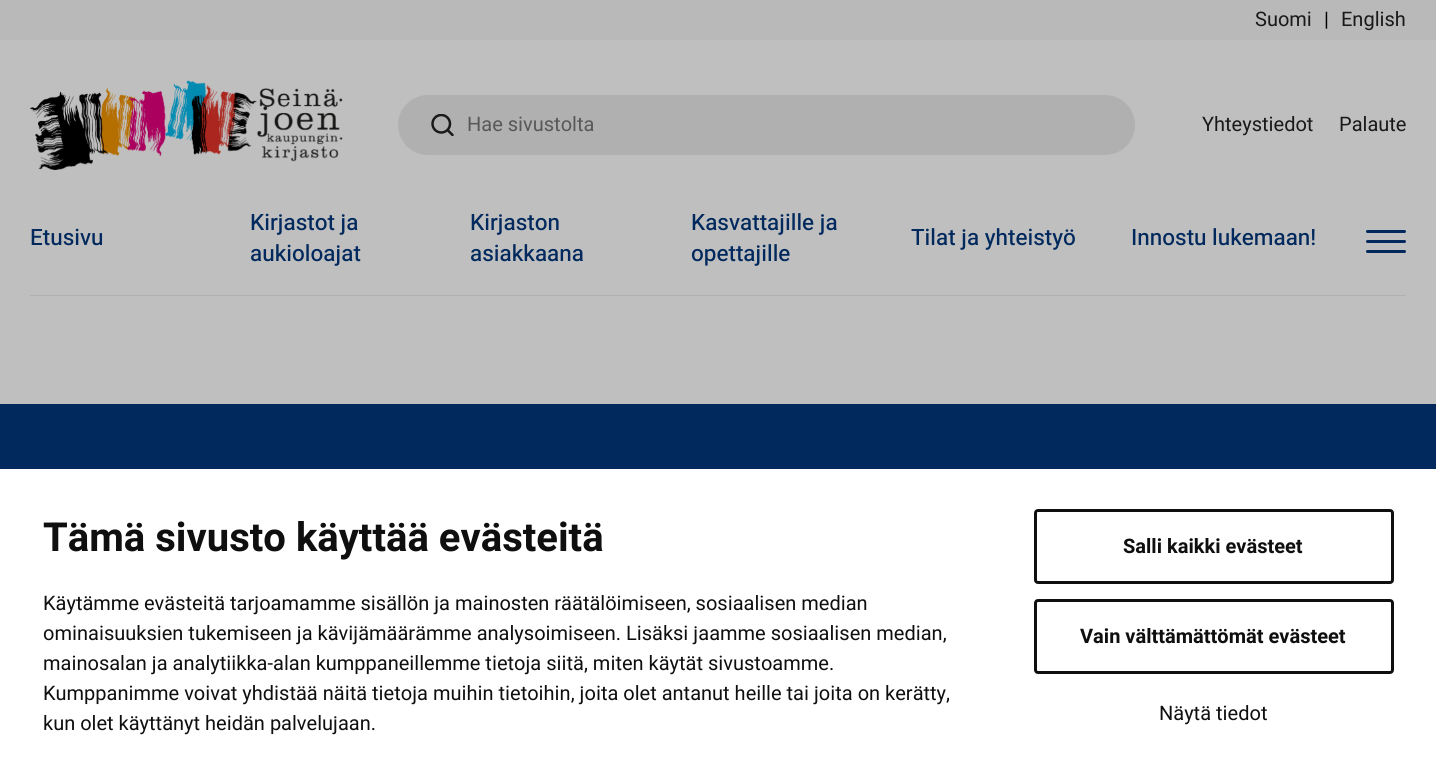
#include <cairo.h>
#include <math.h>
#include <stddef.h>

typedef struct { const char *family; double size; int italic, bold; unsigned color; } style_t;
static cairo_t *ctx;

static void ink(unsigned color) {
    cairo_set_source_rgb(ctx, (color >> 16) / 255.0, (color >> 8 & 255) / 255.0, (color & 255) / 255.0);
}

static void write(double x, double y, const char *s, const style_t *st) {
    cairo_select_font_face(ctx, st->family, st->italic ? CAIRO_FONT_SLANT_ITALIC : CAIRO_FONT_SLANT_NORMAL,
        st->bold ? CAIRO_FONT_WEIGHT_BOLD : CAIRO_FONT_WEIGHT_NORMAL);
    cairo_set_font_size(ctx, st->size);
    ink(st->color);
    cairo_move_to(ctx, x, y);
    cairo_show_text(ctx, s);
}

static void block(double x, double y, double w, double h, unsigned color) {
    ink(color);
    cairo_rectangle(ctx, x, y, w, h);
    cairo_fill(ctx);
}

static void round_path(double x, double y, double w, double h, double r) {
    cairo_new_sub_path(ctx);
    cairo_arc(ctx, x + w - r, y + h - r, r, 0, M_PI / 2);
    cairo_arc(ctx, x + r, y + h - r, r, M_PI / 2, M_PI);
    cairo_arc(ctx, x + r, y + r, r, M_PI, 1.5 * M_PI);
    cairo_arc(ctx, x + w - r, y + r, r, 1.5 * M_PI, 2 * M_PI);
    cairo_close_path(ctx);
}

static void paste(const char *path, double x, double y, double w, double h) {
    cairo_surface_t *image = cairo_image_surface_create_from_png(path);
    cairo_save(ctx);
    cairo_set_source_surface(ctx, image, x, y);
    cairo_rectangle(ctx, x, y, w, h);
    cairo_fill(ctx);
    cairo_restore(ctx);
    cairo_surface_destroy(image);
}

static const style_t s1 = {"Heebo", 20, 0, 0, 0x191919};
static const style_t s2 = {"Heebo", 20, 0, 0, 0x000000};
static const style_t s3 = {"Heebo", 20, 0, 0, 0x585858};
static const style_t s4 = {"Heebo Medium", 22.5, 0, 0, 0x01295d};
static const style_t s5 = {"Heebo", 40, 0, 1, 0x0f0f0f};
static const style_t s6 = {"Heebo", 20, 0, 0, 0x0f0f0f};
static const style_t s7 = {"Heebo", 20, 0, 1, 0x0f0f0f};

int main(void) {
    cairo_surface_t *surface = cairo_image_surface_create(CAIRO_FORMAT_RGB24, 1436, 778);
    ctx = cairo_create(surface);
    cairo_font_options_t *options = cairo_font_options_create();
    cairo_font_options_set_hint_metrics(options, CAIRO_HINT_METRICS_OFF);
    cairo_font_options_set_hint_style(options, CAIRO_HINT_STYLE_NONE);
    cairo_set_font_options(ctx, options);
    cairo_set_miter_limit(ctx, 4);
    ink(0xbfbfbf);
    cairo_paint(ctx);
    block(0, 0, 1436, 40, 0xb9b9b9);
    write(1255, 26, "Suomi", &s1);
    write(1324, 26, "|", &s2);
    write(1341, 26, "English", &s1);
    paste("pic1.png", 30, 80, 313, 90);
    ink(0xb0b0b0);
    round_path(398, 95, 737, 60, 30);
    cairo_fill(ctx);
    paste("pic2.png", 431, 114, 23, 22);
    write(467, 131, "Hae sivustolta", &s3);
    write(1202, 131, "Yhteystiedot", &s1);
    write(1339, 131, "Palaute", &s1);
    block(30, 295, 1376, 1, 0xb0b0b0);
    write(30, 245, "Etusivu", &s4);
    write(250, 230, "Kirjastot ja", &s4);
    write(250, 261, "aukioloajat", &s4);
    write(470, 230, "Kirjaston", &s4);
    write(470, 261, "asiakkaana", &s4);
    write(691, 230, "Kasvattajille ja", &s4);
    write(691, 261, "opettajille", &s4);
    write(911, 245, "Tilat ja yhteistyö", &s4);
    write(1131, 245, "Innostu lukemaan!", &s4);
    round_path(1366, 240, 40, 3, 1.5);
    cairo_fill(ctx);
    round_path(1366, 230, 40, 3, 1.5);
    cairo_fill(ctx);
    round_path(1366, 250, 40, 3, 1.5);
    cairo_fill(ctx);
    block(0, 404, 1436, 65, 0x01295d);
    block(0, 469, 1436, 309, 0xffffff);
    write(43, 551, "Tämä sivusto käyttää evästeitä", &s5);
    write(43, 610, "Käytämme evästeitä tarjoamamme sisällön ja mainosten räätälöimiseen, sosiaalisen median", &s6);
    write(43, 640, "ominaisuuksien tukemiseen ja kävijämäärämme analysoimiseen. Lisäksi jaamme sosiaalisen median,", &s6);
    write(43, 670, "mainosalan ja analytiikka-alan kumppaneillemme tietoja siitä, miten käytät sivustoamme.", &s6);
    write(43, 700, "Kumppanimme voivat yhdistää näitä tietoja muihin tietoihin, joita olet antanut heille tai joita on kerätty,", &s6);
    write(43, 730, "kun olet käyttänyt heidän palvelujaan.", &s6);
    round_path(1035.5, 510.5, 357, 72, 2.5);
    cairo_set_line_width(ctx, 3);
    cairo_stroke(ctx);
    write(1123, 553, "Salli kaikki evästeet", &s7);
    round_path(1035.5, 600.5, 357, 72, 2.5);
    cairo_stroke(ctx);
    write(1080, 643, "Vain välttämättömät evästeet", &s7);
    write(1159, 720, "Näytä tiedot", &s6);
    cairo_surface_write_to_png(surface, "screenshot.png");
    cairo_font_options_destroy(options);
    cairo_destroy(ctx);
    cairo_surface_destroy(surface);
    return 0;
}
